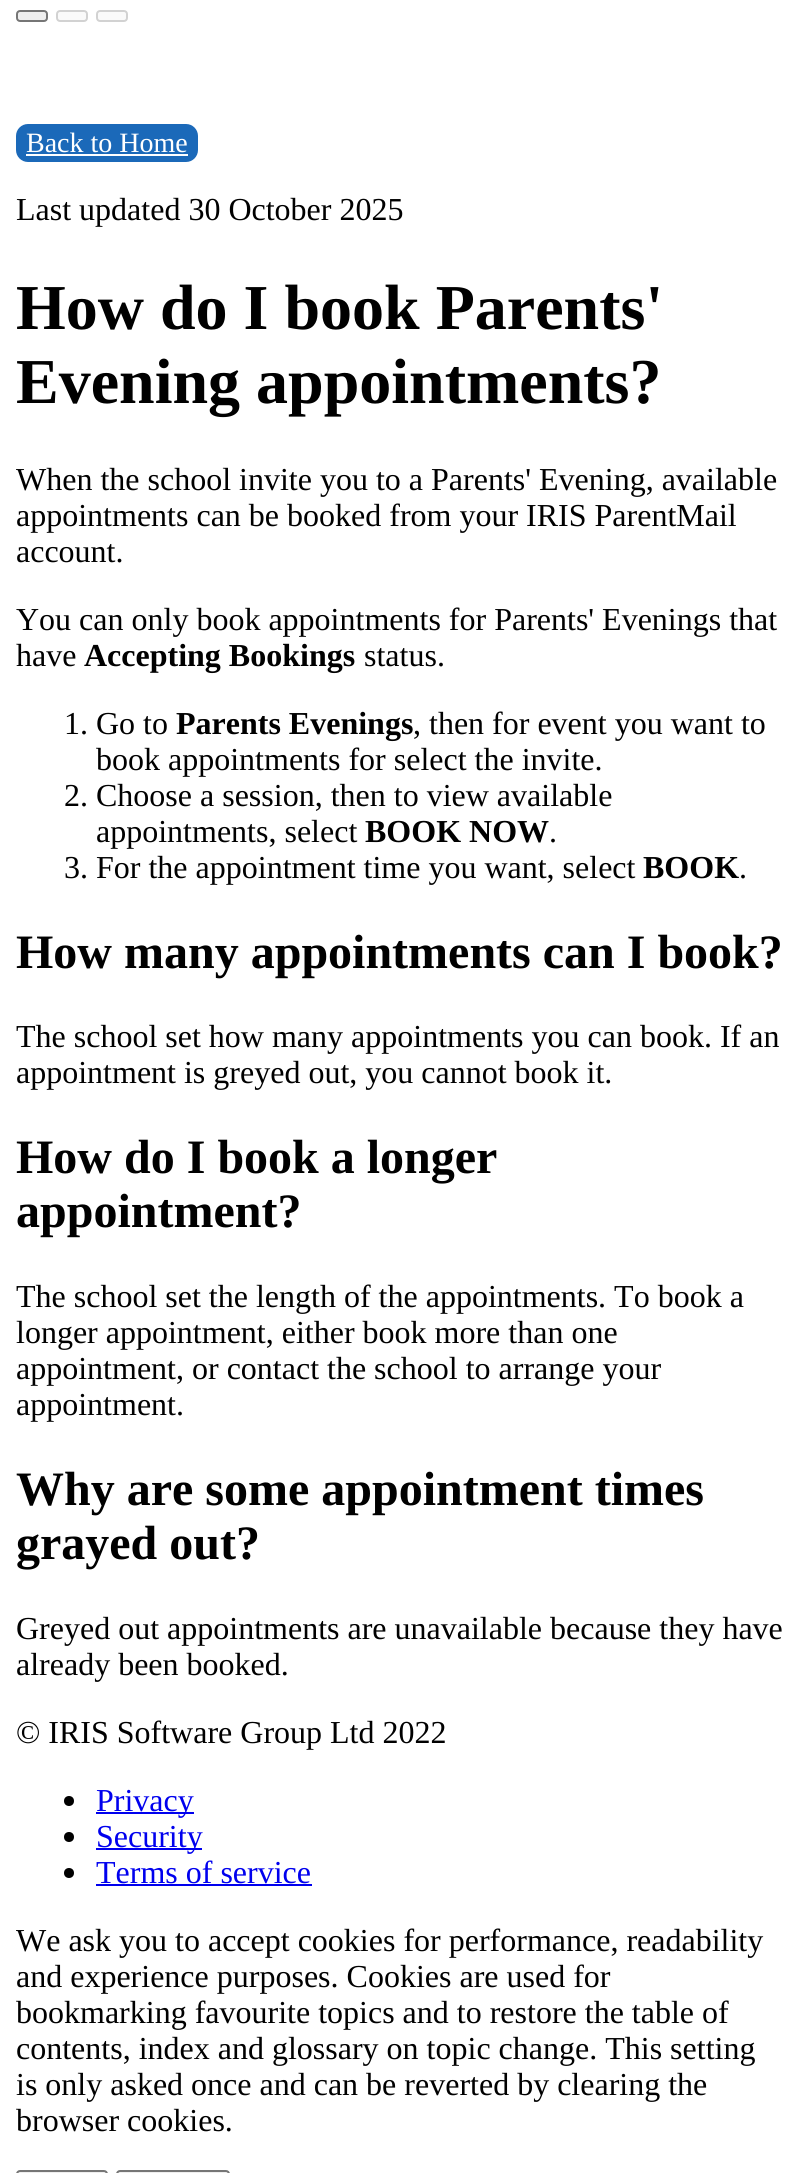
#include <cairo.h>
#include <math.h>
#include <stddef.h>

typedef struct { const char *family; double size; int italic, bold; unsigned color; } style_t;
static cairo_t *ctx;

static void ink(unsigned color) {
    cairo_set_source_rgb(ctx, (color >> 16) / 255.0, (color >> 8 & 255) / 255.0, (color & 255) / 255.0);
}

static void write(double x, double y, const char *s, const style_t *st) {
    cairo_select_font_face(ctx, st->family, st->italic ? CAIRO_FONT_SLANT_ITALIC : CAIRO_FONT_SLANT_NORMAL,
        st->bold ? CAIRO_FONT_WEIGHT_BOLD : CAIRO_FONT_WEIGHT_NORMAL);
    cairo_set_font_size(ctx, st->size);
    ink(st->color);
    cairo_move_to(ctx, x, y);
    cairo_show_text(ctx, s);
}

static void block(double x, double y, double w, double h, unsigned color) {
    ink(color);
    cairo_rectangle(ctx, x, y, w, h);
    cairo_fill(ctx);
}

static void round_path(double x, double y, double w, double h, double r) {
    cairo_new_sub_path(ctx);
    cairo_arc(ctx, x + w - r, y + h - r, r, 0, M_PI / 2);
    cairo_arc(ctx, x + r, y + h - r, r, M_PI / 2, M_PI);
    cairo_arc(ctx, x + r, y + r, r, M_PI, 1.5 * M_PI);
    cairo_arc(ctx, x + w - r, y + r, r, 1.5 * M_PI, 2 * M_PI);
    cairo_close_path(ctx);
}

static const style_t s1 = {"Liberation Serif", 28, 0, 0, 0xffffff};
static const style_t s2 = {"Liberation Serif", 32, 0, 0, 0x000000};
static const style_t s3 = {"Liberation Serif", 64, 0, 1, 0x000000};
static const style_t s4 = {"Liberation Serif", 32, 0, 1, 0x000000};
static const style_t s5 = {"Liberation Serif", 48, 0, 1, 0x000000};
static const style_t s6 = {"Liberation Serif", 32, 0, 0, 0x0000ee};

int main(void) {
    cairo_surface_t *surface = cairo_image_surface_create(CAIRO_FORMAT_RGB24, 799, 2173);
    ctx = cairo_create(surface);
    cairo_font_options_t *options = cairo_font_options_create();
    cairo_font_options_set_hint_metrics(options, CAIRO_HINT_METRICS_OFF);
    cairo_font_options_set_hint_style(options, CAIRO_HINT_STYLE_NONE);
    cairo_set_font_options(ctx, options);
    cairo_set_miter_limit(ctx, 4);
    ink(0xffffff);
    cairo_paint(ctx);
    ink(0xefefef);
    round_path(17, 11, 30, 10, 3);
    cairo_fill_preserve(ctx);
    ink(0x767676);
    cairo_stroke(ctx);
    ink(0xfafafa);
    round_path(57, 11, 30, 10, 3);
    cairo_fill_preserve(ctx);
    ink(0xd2d2d2);
    cairo_stroke(ctx);
    ink(0xfafafa);
    round_path(97, 11, 30, 10, 3);
    cairo_fill_preserve(ctx);
    ink(0xd2d2d2);
    cairo_stroke(ctx);
    ink(0x1b69b9);
    round_path(16, 124, 182, 38, 12);
    cairo_fill(ctx);
    write(26, 152, "Back to Home", &s1);
    block(26, 154, 162, 2, 0xffffff);
    write(16, 220, "Last updated 30 October 2025", &s2);
    write(16, 329, "How do I book Parents'", &s3);
    write(16, 403, "Evening appointments?", &s3);
    write(16, 490, "When the school invite you to a Parents' Evening, available", &s2);
    write(16, 526, "appointments can be booked from your IRIS ParentMail", &s2);
    write(16, 562, "account.", &s2);
    write(16, 630, "You can only book appointments for Parents' Evenings that", &s2);
    write(16, 666, "have", &s2);
    write(84, 666, "Accepting Bookings", &s4);
    write(364, 666, "status.", &s2);
    write(64, 734, "1. Go to", &s2);
    write(176, 734, "Parents Evenings", &s4);
    write(413, 734, ", then for event you want to", &s2);
    write(96, 770, "book appointments for select the invite.", &s2);
    write(64, 806, "2. Choose a session, then to view available", &s2);
    write(96, 842, "appointments, select", &s2);
    write(365, 842, "BOOK NOW", &s4);
    write(549, 842, ".", &s2);
    write(64, 878, "3. For the appointment time you want, select", &s2);
    write(643, 878, "BOOK", &s4);
    write(739, 878, ".", &s2);
    write(16, 968, "How many appointments can I book?", &s5);
    write(16, 1047, "The school set how many appointments you can book. If an", &s2);
    write(16, 1083, "appointment is greyed out, you cannot book it.", &s2);
    write(16, 1173, "How do I book a longer", &s5);
    write(16, 1227, "appointment?", &s5);
    write(16, 1307, "The school set the length of the appointments. To book a", &s2);
    write(16, 1343, "longer appointment, either book more than one", &s2);
    write(16, 1379, "appointment, or contact the school to arrange your", &s2);
    write(16, 1415, "appointment.", &s2);
    write(16, 1505, "Why are some appointment times", &s5);
    write(16, 1559, "grayed out?", &s5);
    write(16, 1639, "Greyed out appointments are unavailable because they have", &s2);
    write(16, 1675, "already been booked.", &s2);
    write(16, 1743, "© IRIS Software Group Ltd 2022", &s2);
    cairo_new_path(ctx);
    cairo_arc(ctx, 69, 1801, 5, 0, 2 * M_PI);
    cairo_fill(ctx);
    block(96, 1812, 98, 2, 0x0000ee);
    write(96, 1811, "Privacy", &s6);
    ink(0x000000);
    cairo_new_path(ctx);
    cairo_arc(ctx, 69, 1837, 5, 0, 2 * M_PI);
    cairo_fill(ctx);
    block(96, 1848, 106, 2, 0x0000ee);
    write(96, 1847, "Security", &s6);
    ink(0x000000);
    cairo_new_path(ctx);
    cairo_arc(ctx, 69, 1873, 5, 0, 2 * M_PI);
    cairo_fill(ctx);
    write(96, 1883, "Terms of service", &s6);
    block(96, 1884, 216, 2, 0x0000ee);
    write(16, 1951, "We ask you to accept cookies for performance, readability", &s2);
    write(16, 1987, "and experience purposes. Cookies are used for", &s2);
    write(16, 2023, "bookmarking favourite topics and to restore the table of", &s2);
    write(16, 2059, "contents, index and glossary on topic change. This setting", &s2);
    write(16, 2095, "is only asked once and can be reverted by clearing the", &s2);
    write(16, 2131, "browser cookies.", &s2);
    ink(0xefefef);
    round_path(17, 2171, 90, 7, 3);
    cairo_fill_preserve(ctx);
    ink(0x767676);
    cairo_stroke(ctx);
    ink(0xefefef);
    round_path(117, 2171, 112, 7, 3);
    cairo_fill_preserve(ctx);
    ink(0x767676);
    cairo_stroke(ctx);
    cairo_surface_write_to_png(surface, "screenshot.png");
    cairo_font_options_destroy(options);
    cairo_destroy(ctx);
    cairo_surface_destroy(surface);
    return 0;
}
